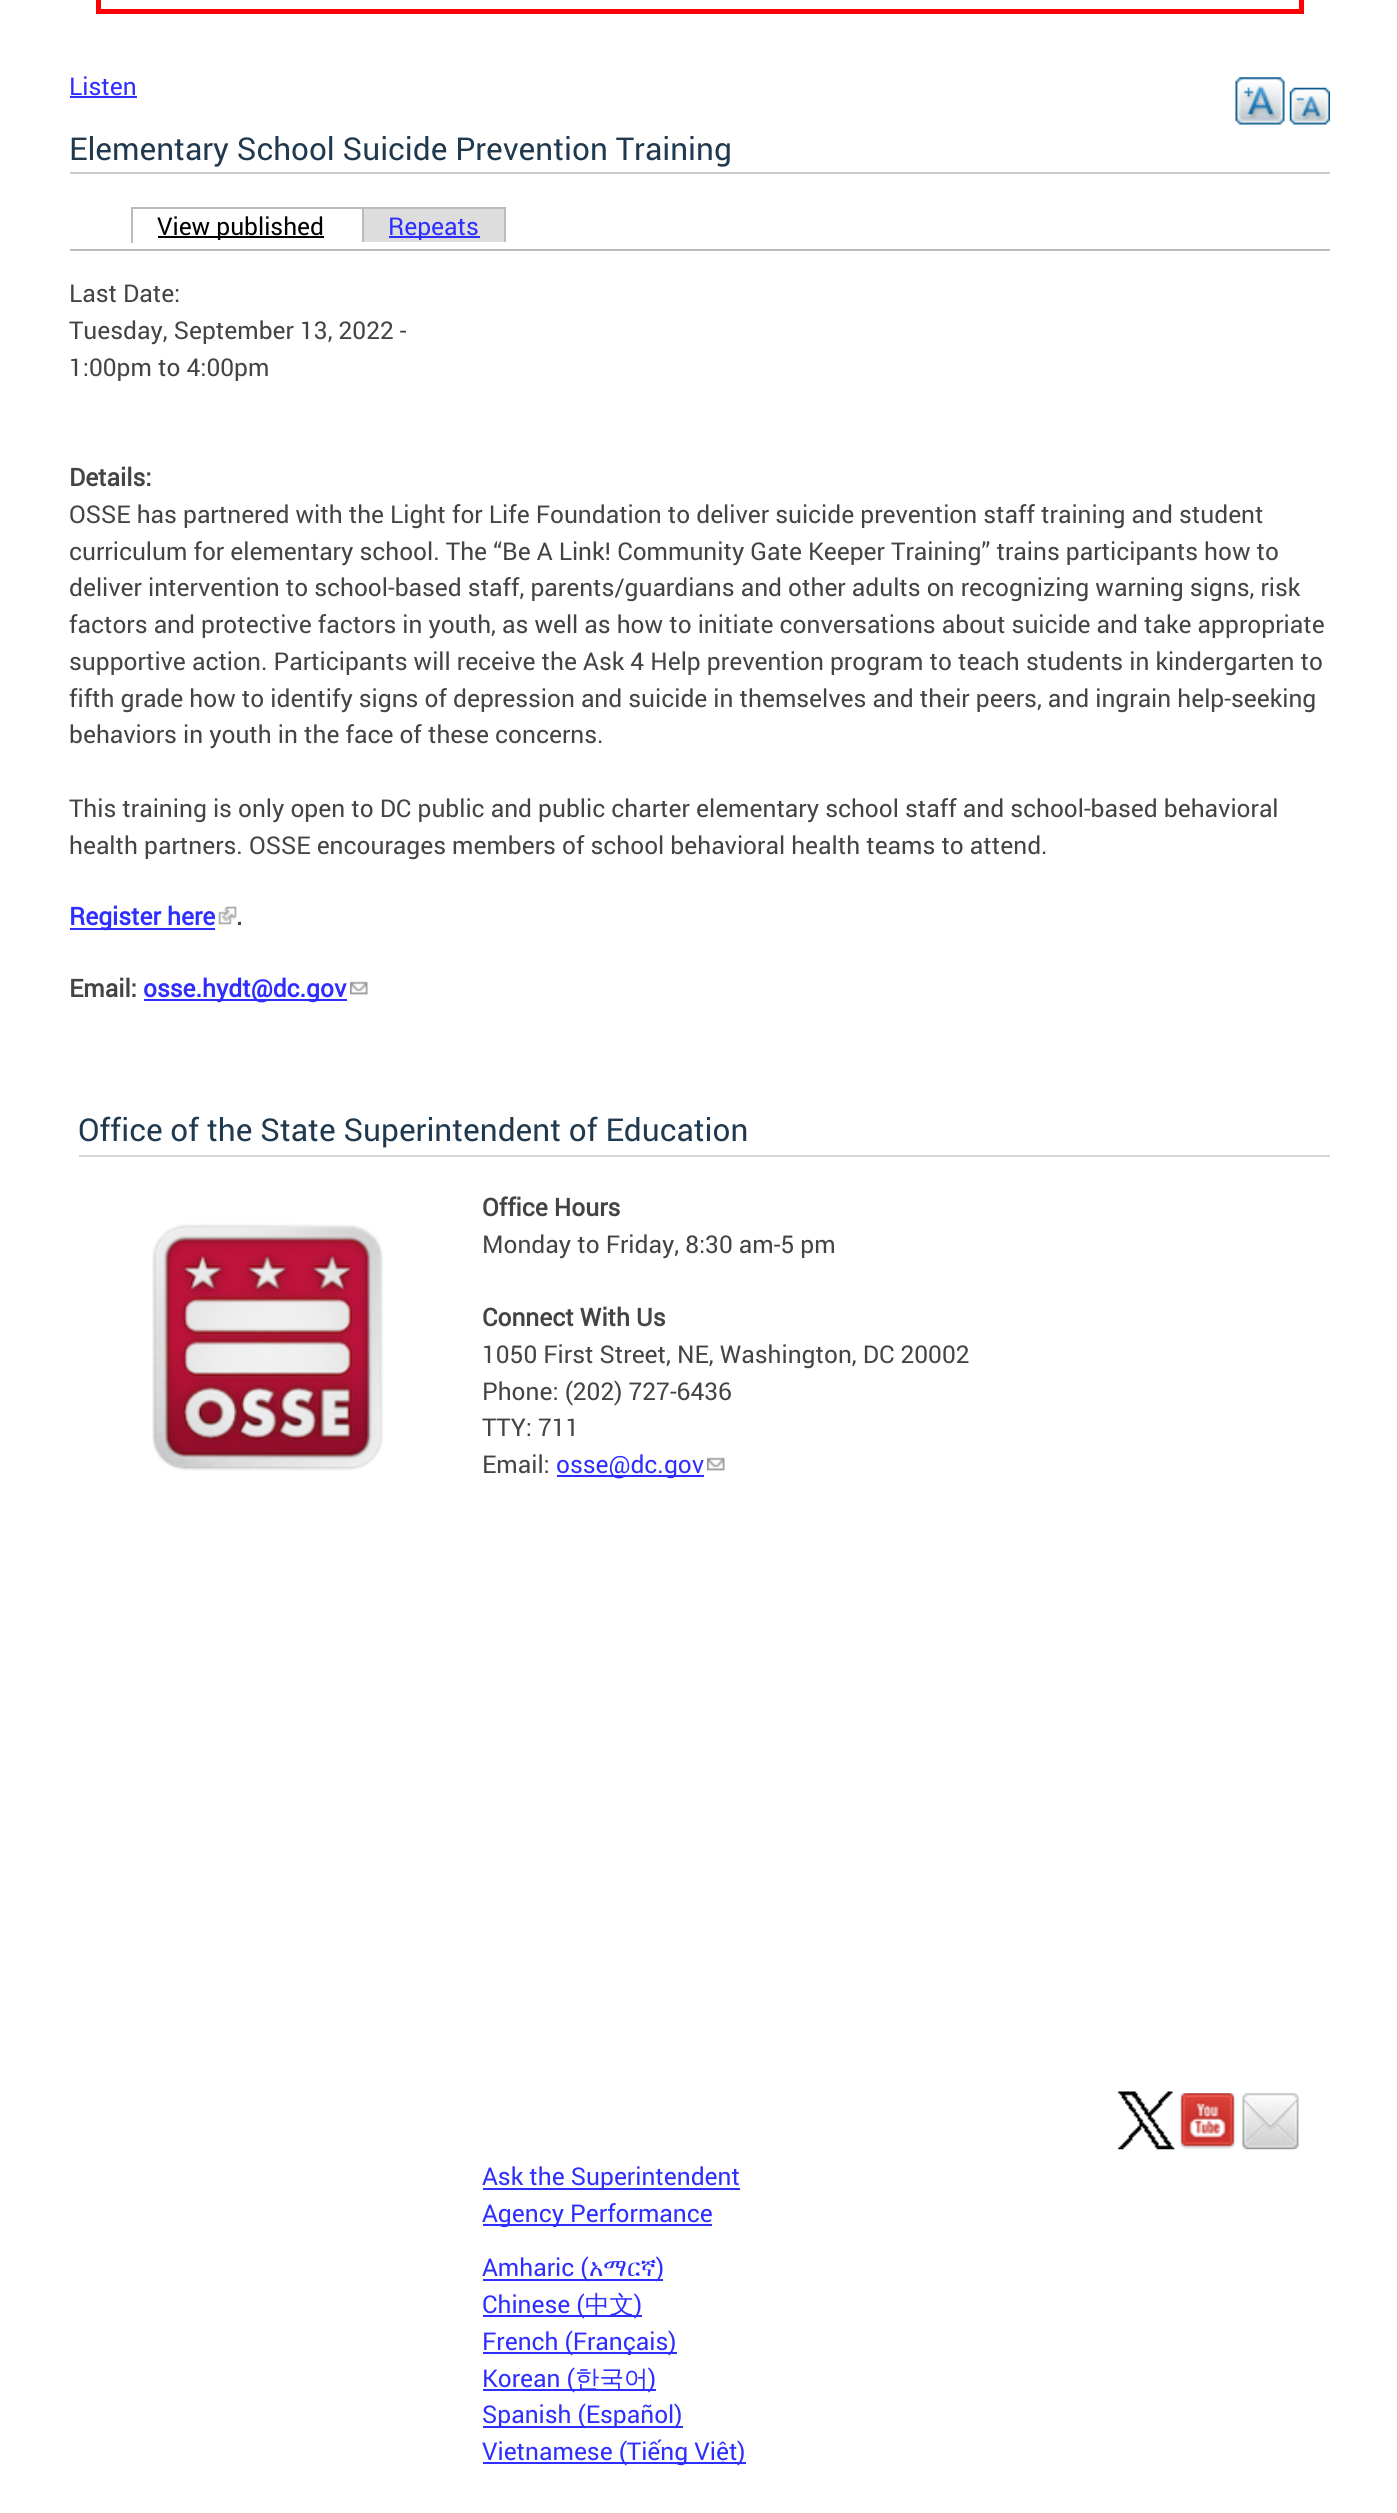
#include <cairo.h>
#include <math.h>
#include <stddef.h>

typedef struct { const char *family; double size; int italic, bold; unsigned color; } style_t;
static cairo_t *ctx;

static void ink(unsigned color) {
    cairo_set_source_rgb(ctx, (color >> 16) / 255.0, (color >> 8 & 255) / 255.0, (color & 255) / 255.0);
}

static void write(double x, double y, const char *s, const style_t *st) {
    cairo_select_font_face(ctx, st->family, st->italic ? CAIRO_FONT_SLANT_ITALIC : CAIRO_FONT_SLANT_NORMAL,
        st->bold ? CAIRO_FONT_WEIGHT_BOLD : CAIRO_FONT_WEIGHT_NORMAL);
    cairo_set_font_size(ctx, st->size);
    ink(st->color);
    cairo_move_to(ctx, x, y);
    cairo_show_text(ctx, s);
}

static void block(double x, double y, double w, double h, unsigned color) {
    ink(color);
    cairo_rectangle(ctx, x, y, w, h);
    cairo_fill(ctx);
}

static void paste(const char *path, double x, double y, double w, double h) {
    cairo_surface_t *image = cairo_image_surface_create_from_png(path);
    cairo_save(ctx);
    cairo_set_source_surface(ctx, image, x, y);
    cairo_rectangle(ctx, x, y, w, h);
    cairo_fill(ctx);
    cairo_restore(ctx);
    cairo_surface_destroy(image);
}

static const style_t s1 = {"Roboto", 24.5, 0, 0, 0x2e2eff};
static const style_t s2 = {"Roboto", 31.5, 0, 0, 0x20394f};
static const style_t s3 = {"Roboto", 24.5, 0, 0, 0x000000};
static const style_t s4 = {"Roboto", 24.5, 0, 0, 0x444444};
static const style_t s5 = {"Roboto", 24.5, 0, 1, 0x444444};
static const style_t s6 = {"Roboto", 24.5, 0, 1, 0x2e2eff};
static const style_t s7 = {"FreeSerif", 24.5, 0, 0, 0x2e2eff};
static const style_t s8 = {"WenQuanYi Zen Hei Medium", 24.5, 0, 0, 0x2e2eff};

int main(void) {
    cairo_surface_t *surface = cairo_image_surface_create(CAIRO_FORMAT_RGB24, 1397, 2513);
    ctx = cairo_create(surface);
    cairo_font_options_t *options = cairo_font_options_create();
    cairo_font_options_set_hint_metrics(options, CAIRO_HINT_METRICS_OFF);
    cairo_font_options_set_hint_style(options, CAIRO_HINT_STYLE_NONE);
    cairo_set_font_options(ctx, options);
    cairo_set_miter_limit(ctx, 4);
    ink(0xffffff);
    cairo_paint(ctx);
    cairo_rectangle(ctx, 98.5, -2.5, 1203, 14);
    ink(0xff0000);
    cairo_set_line_width(ctx, 5);
    cairo_stroke(ctx);
    write(69, 95, "Listen", &s1);
    block(70, 96, 67, 2, 0x2e2eff);
    paste("pic1.png", 1235, 77, 50, 48);
    paste("pic2.png", 1289, 87, 41, 38);
    block(70, 172, 1260, 2, 0xcccccc);
    write(69, 160, "Elementary School Suicide Prevention Training", &s2);
    block(70, 249, 1260, 2, 0xbbbbbb);
    block(158, 236, 166, 2, 0x000000);
    write(157, 235, "View published", &s3);
    block(131, 207, 375, 2, 0xbbbbbb);
    block(131, 207, 2, 36, 0xbbbbbb);
    block(364, 209, 140, 33, 0xdddddd);
    block(389, 236, 91, 2, 0x2e2eff);
    write(388, 235, "Repeats", &s1);
    block(504, 207, 2, 35, 0xbbbbbb);
    block(362, 207, 2, 35, 0xbbbbbb);
    write(69, 302, "Last Date:", &s4);
    write(69, 339, "Tuesday, September 13, 2022 -", &s4);
    write(69, 376, "1:00pm to 4:00pm", &s4);
    write(69, 486, "Details:", &s5);
    write(69, 523, "OSSE has partnered with the Light for Life Foundation to deliver suicide prevention staff training and student", &s4);
    write(69, 560, "curriculum for elementary school. The “Be A Link! Community Gate Keeper Training” trains participants how to", &s4);
    write(69, 596, "deliver intervention to school-based staff, parents/guardians and other adults on recognizing warning signs, risk", &s4);
    write(69, 633, "factors and protective factors in youth, as well as how to initiate conversations about suicide and take appropriate", &s4);
    write(69, 670, "supportive action. Participants will receive the Ask 4 Help prevention program to teach students in kindergarten to", &s4);
    write(69, 707, "fifth grade how to identify signs of depression and suicide in themselves and their peers, and ingrain help-seeking", &s4);
    write(69, 743, "behaviors in youth in the face of these concerns.", &s4);
    write(69, 817, "This training is only open to DC public and public charter elementary school staff and school-based behavioral", &s4);
    write(69, 854, "health partners. OSSE encourages members of school behavioral health teams to attend.", &s4);
    block(70, 928, 145, 2, 0x2e2eff);
    write(69, 925, "Register here", &s6);
    paste("pic3.png", 218, 906, 19, 19);
    write(236, 925, ".", &s5);
    write(69, 997, "Email:", &s5);
    block(144, 999, 203, 2, 0x2e2eff);
    write(143, 997, "osse.hydt@dc.gov", &s6);
    paste("pic4.png", 350, 981, 18, 14);
    block(79, 1155, 1251, 2, 0xd5d5d5);
    write(78, 1141, "Office of the State Superintendent of Education", &s2);
    paste("pic5.png", 152, 1223, 232, 248);
    write(482, 1216, "Office Hours", &s5);
    write(482, 1253, "Monday to Friday, 8:30 am-5 pm", &s4);
    write(482, 1326, "Connect With Us", &s5);
    write(482, 1363, "1050 First Street, NE, Washington, DC 20002", &s4);
    write(482, 1400, "Phone: (202) 727-6436", &s4);
    write(482, 1436, "TTY: 711", &s4);
    write(482, 1473, "Email:", &s4);
    block(557, 1475, 147, 2, 0x2e2eff);
    write(556, 1473, "osse@dc.gov", &s1);
    paste("pic4.png", 707, 1457, 18, 14);
    paste("pic6.png", 1118, 2091, 57, 59);
    paste("pic7.png", 1179, 2093, 57, 56);
    paste("pic8.png", 1242, 2093, 57, 57);
    block(483, 2188, 257, 2, 0x2e2eff);
    write(482, 2185, "Ask the Superintendent", &s1);
    block(483, 2224, 229, 2, 0x2e2eff);
    write(482, 2222, "Agency Performance", &s1);
    block(483, 2279, 180, 2, 0x2e2eff);
    write(482, 2276, "Amharic (", &s1);
    write(589, 2276, "አማርኛ", &s7);
    write(656, 2276, ")", &s1);
    block(483, 2315, 159, 2, 0x2e2eff);
    write(482, 2313, "Chinese (", &s1);
    write(585, 2313, "中文", &s8);
    write(634, 2313, ")", &s1);
    block(483, 2352, 194, 2, 0x2e2eff);
    write(482, 2350, "French (Français)", &s1);
    block(483, 2389, 173, 2, 0x2e2eff);
    write(482, 2387, "Korean (", &s1);
    write(575, 2387, "한국어", &s8);
    write(648, 2387, ")", &s1);
    block(483, 2426, 200, 2, 0x2e2eff);
    write(482, 2423, "Spanish (Español)", &s1);
    block(483, 2462, 263, 2, 0x2e2eff);
    write(482, 2460, "Vietnamese (Tiếng Việt)", &s1);
    cairo_surface_write_to_png(surface, "screenshot.png");
    cairo_font_options_destroy(options);
    cairo_destroy(ctx);
    cairo_surface_destroy(surface);
    return 0;
}
